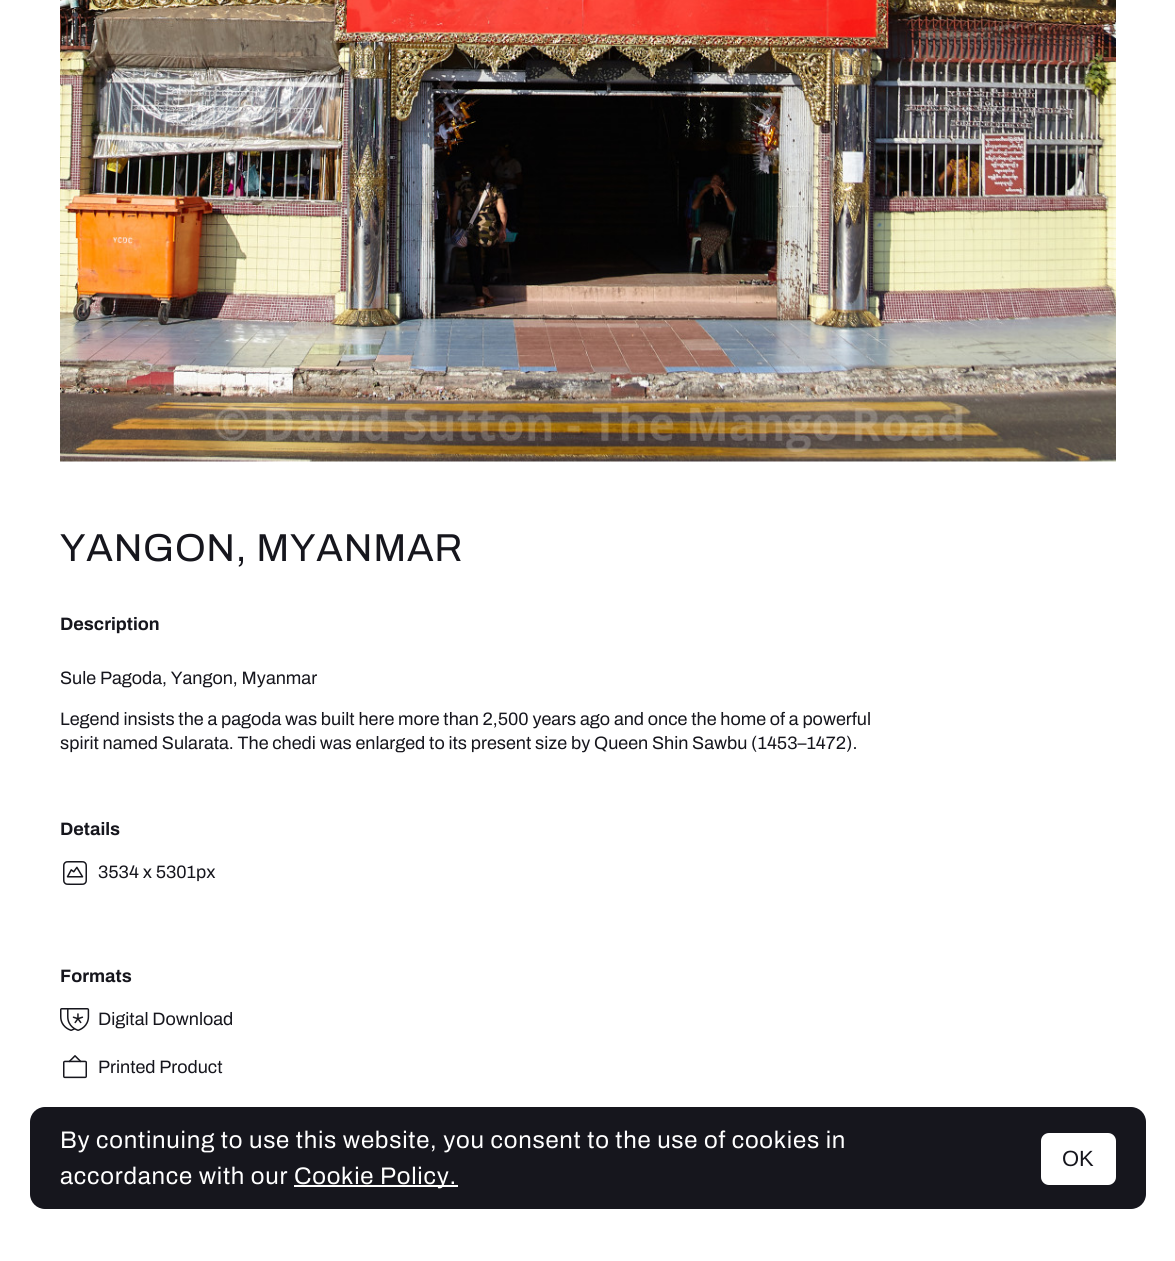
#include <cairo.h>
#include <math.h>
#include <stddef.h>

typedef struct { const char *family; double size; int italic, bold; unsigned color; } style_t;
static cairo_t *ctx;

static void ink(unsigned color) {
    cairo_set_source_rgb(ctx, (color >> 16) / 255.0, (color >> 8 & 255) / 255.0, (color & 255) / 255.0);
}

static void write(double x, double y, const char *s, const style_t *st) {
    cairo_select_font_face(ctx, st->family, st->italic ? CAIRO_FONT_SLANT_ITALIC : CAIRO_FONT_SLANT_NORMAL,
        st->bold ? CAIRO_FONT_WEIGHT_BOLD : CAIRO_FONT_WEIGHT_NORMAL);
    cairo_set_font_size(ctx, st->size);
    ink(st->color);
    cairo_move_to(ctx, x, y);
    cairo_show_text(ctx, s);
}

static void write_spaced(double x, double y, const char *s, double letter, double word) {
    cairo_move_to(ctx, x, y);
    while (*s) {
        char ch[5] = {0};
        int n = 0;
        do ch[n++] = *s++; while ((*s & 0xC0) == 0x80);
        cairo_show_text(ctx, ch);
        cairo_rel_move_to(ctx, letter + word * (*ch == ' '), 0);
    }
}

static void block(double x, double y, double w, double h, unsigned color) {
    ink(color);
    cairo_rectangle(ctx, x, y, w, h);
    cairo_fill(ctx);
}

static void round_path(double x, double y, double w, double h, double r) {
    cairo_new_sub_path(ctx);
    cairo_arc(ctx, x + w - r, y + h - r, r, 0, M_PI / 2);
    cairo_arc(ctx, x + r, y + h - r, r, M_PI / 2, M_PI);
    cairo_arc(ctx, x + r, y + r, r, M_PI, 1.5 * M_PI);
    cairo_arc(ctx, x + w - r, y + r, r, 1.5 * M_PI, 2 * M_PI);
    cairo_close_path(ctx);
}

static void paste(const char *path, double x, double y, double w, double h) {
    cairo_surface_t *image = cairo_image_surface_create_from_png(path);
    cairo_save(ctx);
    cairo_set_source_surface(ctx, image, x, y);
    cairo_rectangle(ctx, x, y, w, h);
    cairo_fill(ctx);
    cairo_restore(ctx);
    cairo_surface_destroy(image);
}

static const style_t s1 = {"Archivo", 18, 0, 1, 0x16161d};
static const style_t s2 = {"Archivo", 18, 0, 0, 0x16161d};
static const style_t s3 = {"Liberation Sans", 22, 0, 0, 0x16161d};

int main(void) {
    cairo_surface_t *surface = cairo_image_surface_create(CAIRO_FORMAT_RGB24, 1175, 1261);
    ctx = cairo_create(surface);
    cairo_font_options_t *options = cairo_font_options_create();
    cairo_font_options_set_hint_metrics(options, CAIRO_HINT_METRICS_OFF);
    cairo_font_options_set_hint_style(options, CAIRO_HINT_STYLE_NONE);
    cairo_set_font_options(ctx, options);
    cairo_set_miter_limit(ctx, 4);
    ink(0xffffff);
    cairo_paint(ctx);
    paste("pic1.png", 60, 0, 1056, 462);
    cairo_select_font_face(ctx, "Archivo", CAIRO_FONT_SLANT_NORMAL, CAIRO_FONT_WEIGHT_NORMAL);
    cairo_set_font_size(ctx, 39);
    ink(0x16161d);
    write_spaced(60, 561, "YANGON, MYANMAR", 0.75, 0);
    write(60, 630, "Description", &s1);
    write(60, 684, "Sule Pagoda, Yangon, Myanmar", &s2);
    write(60, 725, "Legend insists the a pagoda was built here more than 2,500 years ago and once the home of a powerful", &s2);
    write(60, 749, "spirit named Sularata. The chedi was enlarged to its present size by Queen Shin Sawbu (1453–1472).", &s2);
    write(60, 835, "Details", &s1);
    paste("pic2.png", 63, 861, 24, 24);
    write(98, 878, "3534 x 5301px", &s2);
    write(60, 982, "Formats", &s1);
    paste("pic3.png", 60, 1008, 30, 23);
    write(98, 1025, "Digital Download", &s2);
    paste("pic4.png", 63, 1055, 24, 24);
    write(98, 1073, "Printed Product", &s2);
    round_path(30, 1107, 1116, 102, 15);
    cairo_fill(ctx);
    cairo_set_font_size(ctx, 24);
    ink(0xffffff);
    write_spaced(60, 1148, "By continuing to use this website, you consent to the use of cookies in", 0.75, 0);
    write_spaced(60, 1184, "accordance with our", 0.75, 0);
    block(294, 1185, 164, 2, 0xffffff);
    write_spaced(294, 1184, "Cookie Policy.", 0.75, 0);
    round_path(1041, 1133, 75, 52, 8);
    cairo_fill(ctx);
    write(1062, 1166, "OK", &s3);
    cairo_surface_write_to_png(surface, "screenshot.png");
    cairo_font_options_destroy(options);
    cairo_destroy(ctx);
    cairo_surface_destroy(surface);
    return 0;
}
